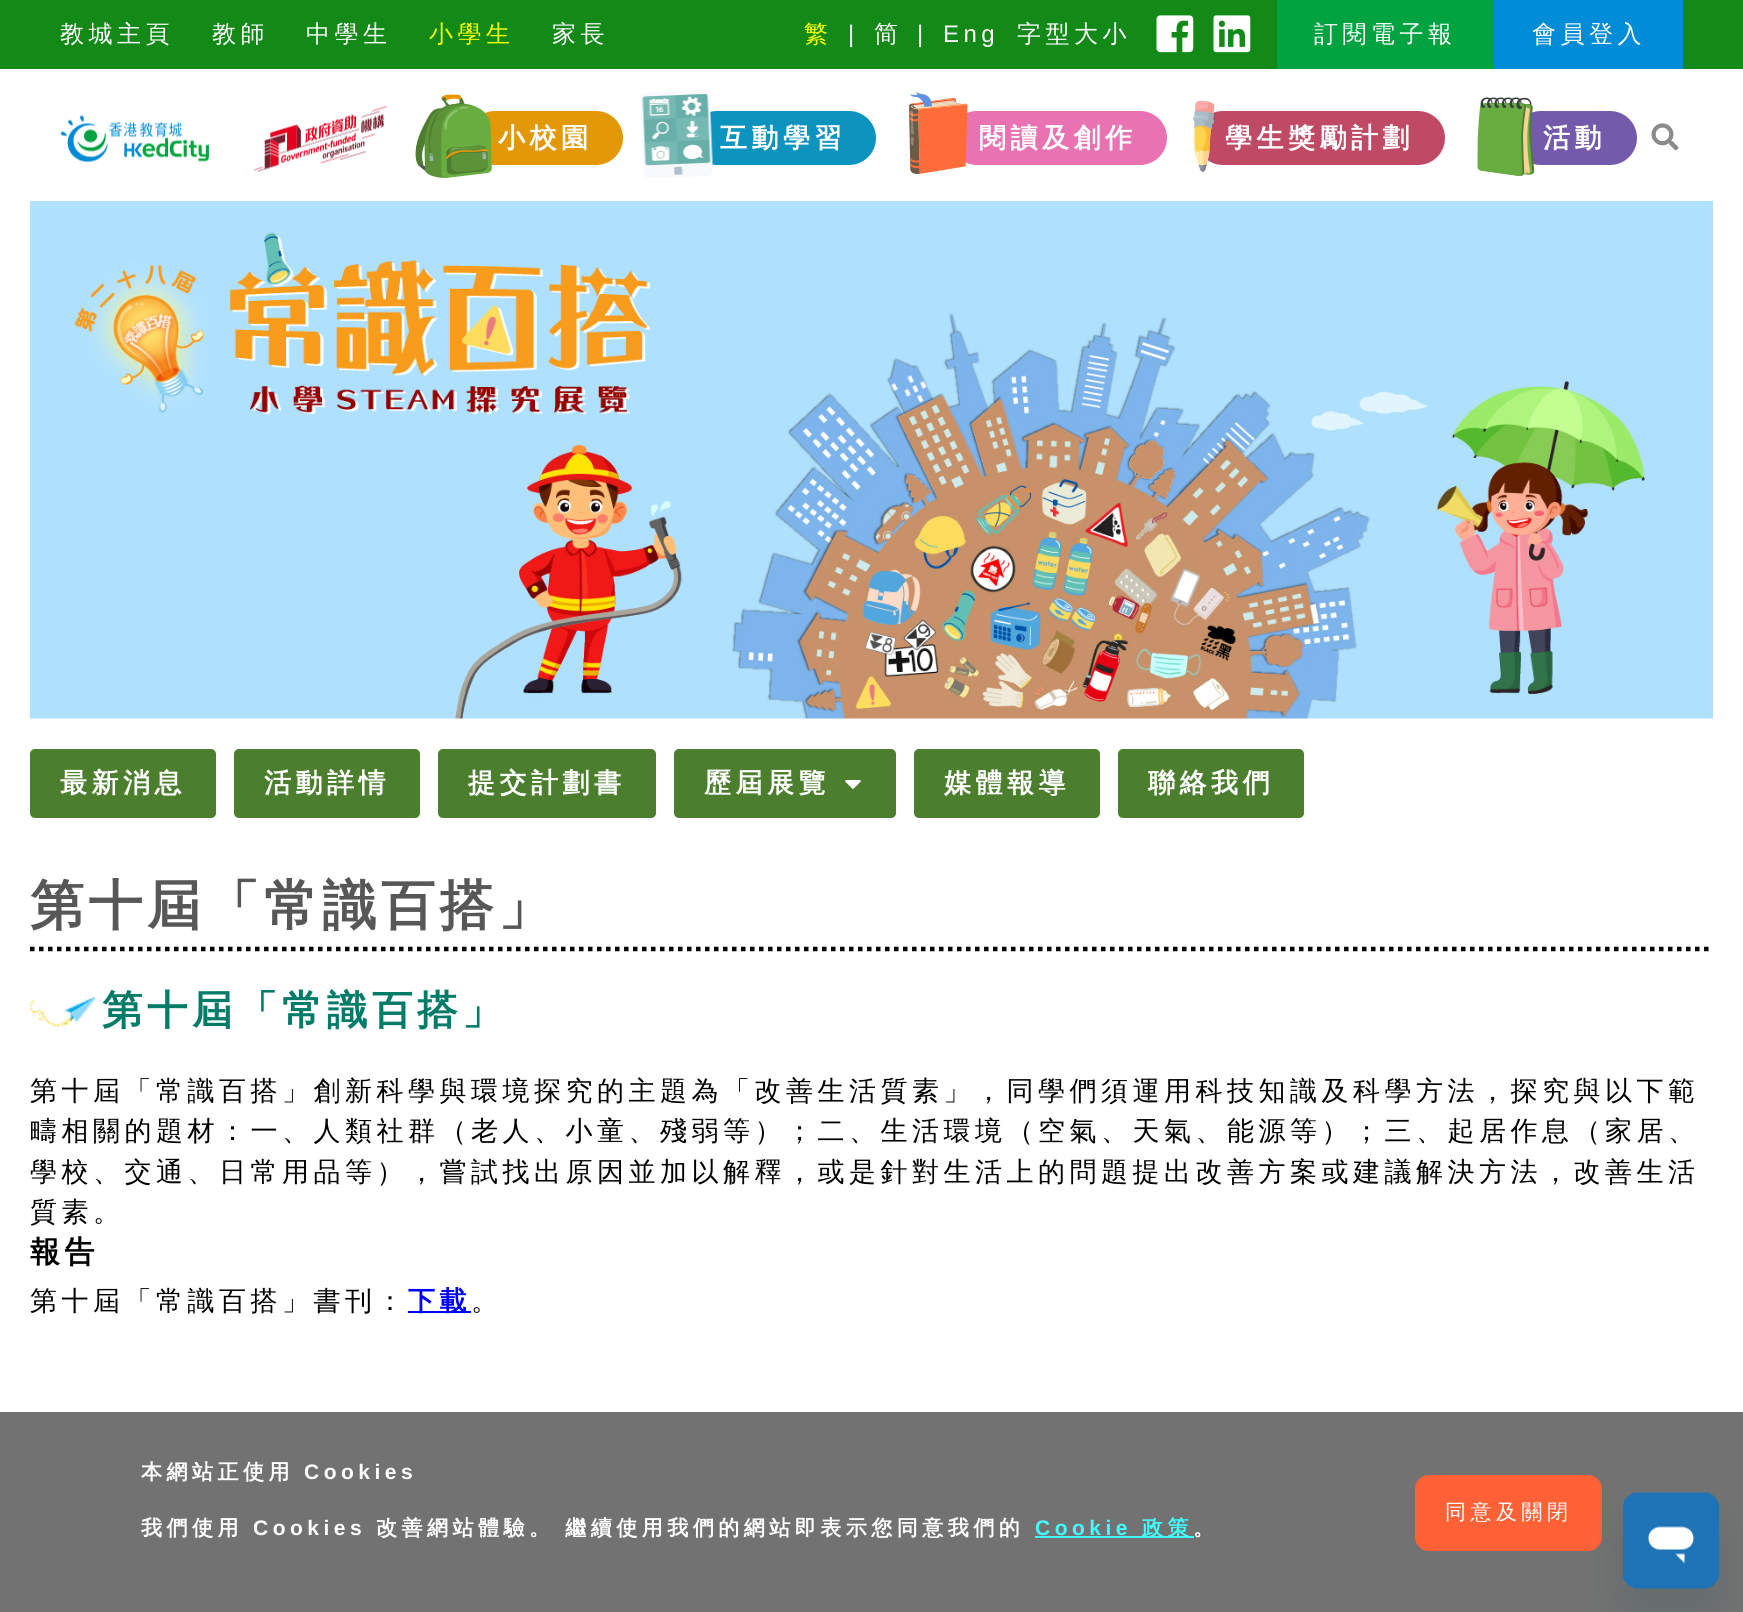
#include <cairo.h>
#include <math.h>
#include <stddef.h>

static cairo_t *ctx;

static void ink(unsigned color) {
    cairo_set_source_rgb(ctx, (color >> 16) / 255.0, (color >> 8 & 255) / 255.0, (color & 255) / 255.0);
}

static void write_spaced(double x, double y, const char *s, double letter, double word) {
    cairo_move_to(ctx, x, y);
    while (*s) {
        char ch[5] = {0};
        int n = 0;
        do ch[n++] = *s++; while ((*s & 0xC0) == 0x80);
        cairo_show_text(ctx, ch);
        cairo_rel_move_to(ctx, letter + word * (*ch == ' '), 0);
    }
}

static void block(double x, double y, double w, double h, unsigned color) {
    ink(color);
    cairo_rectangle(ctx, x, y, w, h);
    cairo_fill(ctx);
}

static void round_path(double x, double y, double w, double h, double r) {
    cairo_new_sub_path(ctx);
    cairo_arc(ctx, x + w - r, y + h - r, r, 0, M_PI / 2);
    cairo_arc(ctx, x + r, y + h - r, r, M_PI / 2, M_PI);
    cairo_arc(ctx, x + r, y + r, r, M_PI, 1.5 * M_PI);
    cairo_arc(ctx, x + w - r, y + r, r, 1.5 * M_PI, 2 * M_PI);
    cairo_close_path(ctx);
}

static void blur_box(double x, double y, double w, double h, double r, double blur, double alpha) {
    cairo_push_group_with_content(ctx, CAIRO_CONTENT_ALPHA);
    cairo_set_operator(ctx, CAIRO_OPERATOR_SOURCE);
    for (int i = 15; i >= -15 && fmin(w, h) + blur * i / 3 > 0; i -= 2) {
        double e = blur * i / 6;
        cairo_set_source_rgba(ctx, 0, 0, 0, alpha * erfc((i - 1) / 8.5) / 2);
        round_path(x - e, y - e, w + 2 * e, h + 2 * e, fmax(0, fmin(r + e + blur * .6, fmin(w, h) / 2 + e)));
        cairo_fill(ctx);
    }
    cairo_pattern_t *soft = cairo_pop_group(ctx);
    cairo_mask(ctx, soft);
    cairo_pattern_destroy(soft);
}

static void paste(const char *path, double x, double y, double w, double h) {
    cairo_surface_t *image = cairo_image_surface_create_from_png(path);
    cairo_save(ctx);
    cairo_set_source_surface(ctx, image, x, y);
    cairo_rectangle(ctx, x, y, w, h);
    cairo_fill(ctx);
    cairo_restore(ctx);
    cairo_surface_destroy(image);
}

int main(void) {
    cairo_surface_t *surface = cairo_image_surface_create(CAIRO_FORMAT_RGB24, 1743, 1612);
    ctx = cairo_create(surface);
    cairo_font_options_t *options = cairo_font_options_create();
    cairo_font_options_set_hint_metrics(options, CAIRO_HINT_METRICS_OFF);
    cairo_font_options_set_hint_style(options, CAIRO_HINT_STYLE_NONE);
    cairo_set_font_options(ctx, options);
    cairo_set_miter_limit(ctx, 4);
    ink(0xffffff);
    cairo_paint(ctx);
    block(0, 0, 1743, 69, 0x138918);
    cairo_select_font_face(ctx, "WenQuanYi Zen Hei Medium", CAIRO_FONT_SLANT_NORMAL, CAIRO_FONT_WEIGHT_NORMAL);
    cairo_set_font_size(ctx, 24);
    ink(0xffffff);
    write_spaced(60, 42, "教城主頁", 4.5, 0);
    write_spaced(212, 42, "教師", 4.5, 0);
    write_spaced(306, 42, "中學生", 4.5, 0);
    ink(0xfaff00);
    write_spaced(429, 42, "小學生", 4.5, 0);
    ink(0xffffff);
    write_spaced(552, 42, "家長", 4.5, 0);
    ink(0xfaff00);
    write_spaced(804, 42, "繁", 4.5, 0);
    cairo_select_font_face(ctx, "Liberation Sans", CAIRO_FONT_SLANT_NORMAL, CAIRO_FONT_WEIGHT_NORMAL);
    ink(0xffffff);
    write_spaced(848, 42, "|", 4.5, 0);
    cairo_select_font_face(ctx, "WenQuanYi Zen Hei Medium", CAIRO_FONT_SLANT_NORMAL, CAIRO_FONT_WEIGHT_NORMAL);
    write_spaced(874, 42, "简", 4.5, 0);
    cairo_select_font_face(ctx, "Liberation Sans", CAIRO_FONT_SLANT_NORMAL, CAIRO_FONT_WEIGHT_NORMAL);
    write_spaced(917, 42, "|", 4.5, 0);
    write_spaced(943, 42, "Eng", 4.5, 0);
    cairo_select_font_face(ctx, "WenQuanYi Zen Hei Medium", CAIRO_FONT_SLANT_NORMAL, CAIRO_FONT_WEIGHT_NORMAL);
    write_spaced(1017, 42, "字型大小", 4.5, 0);
    paste("pic1.png", 1156, 15, 38, 38);
    paste("pic2.png", 1213, 15, 38, 38);
    block(1277, 0, 217, 69, 0x00a340);
    ink(0xffffff);
    write_spaced(1314, 42, "訂閱電子報", 4.5, 0);
    block(1494, 0, 189, 69, 0x008cd6);
    ink(0xffffff);
    write_spaced(1532, 42, "會員登入", 4.5, 0);
    paste("pic3.png", 61, 115, 148, 48);
    paste("pic4.png", 253, 105, 134, 67);
    ink(0xe39807);
    round_path(468, 111, 155, 54, 27);
    cairo_fill(ctx);
    paste("pic5.png", 415, 94, 77, 84);
    cairo_select_font_face(ctx, "WenQuanYi Zen Hei", CAIRO_FONT_SLANT_NORMAL, CAIRO_FONT_WEIGHT_BOLD);
    cairo_set_font_size(ctx, 27);
    ink(0xffffff);
    write_spaced(498, 147, "小校園", 4.5, 0);
    ink(0x0c94bf);
    round_path(690, 111, 186, 54, 27);
    cairo_fill(ctx);
    paste("pic6.png", 641, 90, 72, 88);
    ink(0xffffff);
    write_spaced(720, 147, "互動學習", 4.5, 0);
    ink(0xe872b2);
    round_path(950, 111, 217, 54, 27);
    cairo_fill(ctx);
    paste("pic7.png", 909, 92, 59, 82);
    ink(0xffffff);
    write_spaced(979, 147, "閱讀及創作", 4.5, 0);
    ink(0xc04a66);
    round_path(1196, 111, 249, 54, 27);
    cairo_fill(ctx);
    paste("pic8.png", 1193, 100, 22, 72);
    ink(0xffffff);
    write_spaced(1225, 147, "學生獎勵計劃", 4.5, 0);
    ink(0x745aab);
    round_path(1514, 111, 123, 54, 27);
    cairo_fill(ctx);
    paste("pic9.png", 1477, 97, 58, 79);
    ink(0xffffff);
    write_spaced(1543, 147, "活動", 4.5, 0);
    paste("pic10.png", 1651, 123, 28, 28);
    paste("pic11.png", 30, 201, 1683, 518);
    ink(0x4b7f2e);
    round_path(30, 749, 186, 69, 5);
    cairo_fill(ctx);
    ink(0xffffff);
    write_spaced(60, 792, "最新消息", 4.5, 0);
    ink(0x4b7f2e);
    round_path(234, 749, 186, 69, 5);
    cairo_fill(ctx);
    ink(0xffffff);
    write_spaced(264, 792, "活動詳情", 4.5, 0);
    ink(0x4b7f2e);
    round_path(438, 749, 218, 69, 5);
    cairo_fill(ctx);
    ink(0xffffff);
    write_spaced(468, 792, "提交計劃書", 4.5, 0);
    ink(0x4b7f2e);
    round_path(674, 749, 222, 69, 5);
    cairo_fill(ctx);
    ink(0xffffff);
    write_spaced(704, 792, "歷屆展覽", 4.5, 0);
    paste("pic12.png", 845, 780, 16, 9);
    ink(0x4b7f2e);
    round_path(914, 749, 186, 69, 5);
    cairo_fill(ctx);
    ink(0xffffff);
    write_spaced(944, 792, "媒體報導", 4.5, 0);
    ink(0x4b7f2e);
    round_path(1118, 749, 186, 69, 5);
    cairo_fill(ctx);
    ink(0xffffff);
    write_spaced(1148, 792, "聯絡我們", 4.5, 0);
    cairo_new_path(ctx);
    cairo_move_to(ctx, 30, 949);
    cairo_line_to(ctx, 1713, 949);
    ink(0x000000);
    cairo_set_line_width(ctx, 4.5);
    cairo_set_dash(ctx, (double[]){4.5, 4.5}, 2, 0);
    cairo_stroke(ctx);
    cairo_set_font_size(ctx, 54);
    ink(0x575757);
    write_spaced(30, 924, "第十屆「常識百搭」", 4.5, 0);
    paste("pic13.png", 30, 997, 71, 30);
    cairo_set_font_size(ctx, 40.5);
    ink(0x037b69);
    write_spaced(102, 1024, "第十屆「常識百搭」", 4.5, 0);
    cairo_select_font_face(ctx, "WenQuanYi Zen Hei Medium", CAIRO_FONT_SLANT_NORMAL, CAIRO_FONT_WEIGHT_NORMAL);
    cairo_set_font_size(ctx, 27);
    ink(0x000000);
    write_spaced(30, 1100, "第十屆「常識百搭」創新科學與環境探究的主題為「改善生活質素」，同學們須運用科技知識及科學方法，探究與以下範", 4.5, 0);
    write_spaced(30, 1140, "疇相關的題材：一、人類社群（老人、小童、殘弱等）；二、生活環境（空氣、天氣、能源等）；三、起居作息（家居、", 4.5, 0);
    write_spaced(30, 1181, "學校、交通、日常用品等），嘗試找出原因並加以解釋，或是針對生活上的問題提出改善方案或建議解決方法，改善生活", 4.5, 0);
    write_spaced(30, 1221, "質素。", 4.5, 0);
    cairo_select_font_face(ctx, "WenQuanYi Zen Hei", CAIRO_FONT_SLANT_NORMAL, CAIRO_FONT_WEIGHT_BOLD);
    cairo_set_font_size(ctx, 30);
    write_spaced(30, 1262, "報告", 4.5, 0);
    cairo_select_font_face(ctx, "WenQuanYi Zen Hei Medium", CAIRO_FONT_SLANT_NORMAL, CAIRO_FONT_WEIGHT_NORMAL);
    cairo_set_font_size(ctx, 27);
    write_spaced(30, 1310, "第十屆「常識百搭」書刊：", 4.5, 0);
    block(408, 1311, 63, 2, 0x0000ff);
    cairo_select_font_face(ctx, "WenQuanYi Zen Hei", CAIRO_FONT_SLANT_NORMAL, CAIRO_FONT_WEIGHT_BOLD);
    write_spaced(408, 1310, "下載", 4.5, 0);
    cairo_select_font_face(ctx, "WenQuanYi Zen Hei Medium", CAIRO_FONT_SLANT_NORMAL, CAIRO_FONT_WEIGHT_NORMAL);
    ink(0x000000);
    write_spaced(471, 1310, "。", 4.5, 0);
    block(0, 1412, 1743, 200, 0x727272);
    cairo_select_font_face(ctx, "WenQuanYi Zen Hei", CAIRO_FONT_SLANT_NORMAL, CAIRO_FONT_WEIGHT_BOLD);
    cairo_set_font_size(ctx, 21);
    ink(0xffffff);
    write_spaced(141, 1479, "本網站正使用", 4.5, 0);
    cairo_select_font_face(ctx, "Liberation Sans", CAIRO_FONT_SLANT_NORMAL, CAIRO_FONT_WEIGHT_BOLD);
    write_spaced(304, 1479, "Cookies", 4.5, 0);
    cairo_select_font_face(ctx, "WenQuanYi Zen Hei", CAIRO_FONT_SLANT_NORMAL, CAIRO_FONT_WEIGHT_BOLD);
    write_spaced(141, 1535, "我們使用", 4.5, 0);
    cairo_select_font_face(ctx, "Liberation Sans", CAIRO_FONT_SLANT_NORMAL, CAIRO_FONT_WEIGHT_BOLD);
    write_spaced(253, 1535, "Cookies", 4.5, 0);
    cairo_select_font_face(ctx, "WenQuanYi Zen Hei", CAIRO_FONT_SLANT_NORMAL, CAIRO_FONT_WEIGHT_BOLD);
    write_spaced(376, 1535, "改善網站體驗。 繼續使用我們的網站即表示您同意我們的", 4.5, 0);
    cairo_select_font_face(ctx, "Liberation Sans", CAIRO_FONT_SLANT_NORMAL, CAIRO_FONT_WEIGHT_BOLD);
    ink(0x41feff);
    write_spaced(1035, 1535, "Cookie", 4.5, 0);
    block(1035, 1536, 159, 2, 0x41feff);
    cairo_select_font_face(ctx, "WenQuanYi Zen Hei", CAIRO_FONT_SLANT_NORMAL, CAIRO_FONT_WEIGHT_BOLD);
    write_spaced(1142, 1535, "政策", 4.5, 0);
    ink(0xffffff);
    write_spaced(1193, 1535, "。", 4.5, 0);
    ink(0xff6137);
    round_path(1415, 1475, 187, 76, 14);
    cairo_fill(ctx);
    cairo_select_font_face(ctx, "WenQuanYi Zen Hei Medium", CAIRO_FONT_SLANT_NORMAL, CAIRO_FONT_WEIGHT_NORMAL);
    ink(0xffffff);
    write_spaced(1445, 1519, "同意及關閉", 4.5, 0);
    ink(0x17494d);
    blur_box(1623, 1523, 96, 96, 15, 22.5, 0.15);
    paste("pic14.png", 1623, 1492, 96, 97);
    cairo_surface_write_to_png(surface, "screenshot.png");
    cairo_font_options_destroy(options);
    cairo_destroy(ctx);
    cairo_surface_destroy(surface);
    return 0;
}
